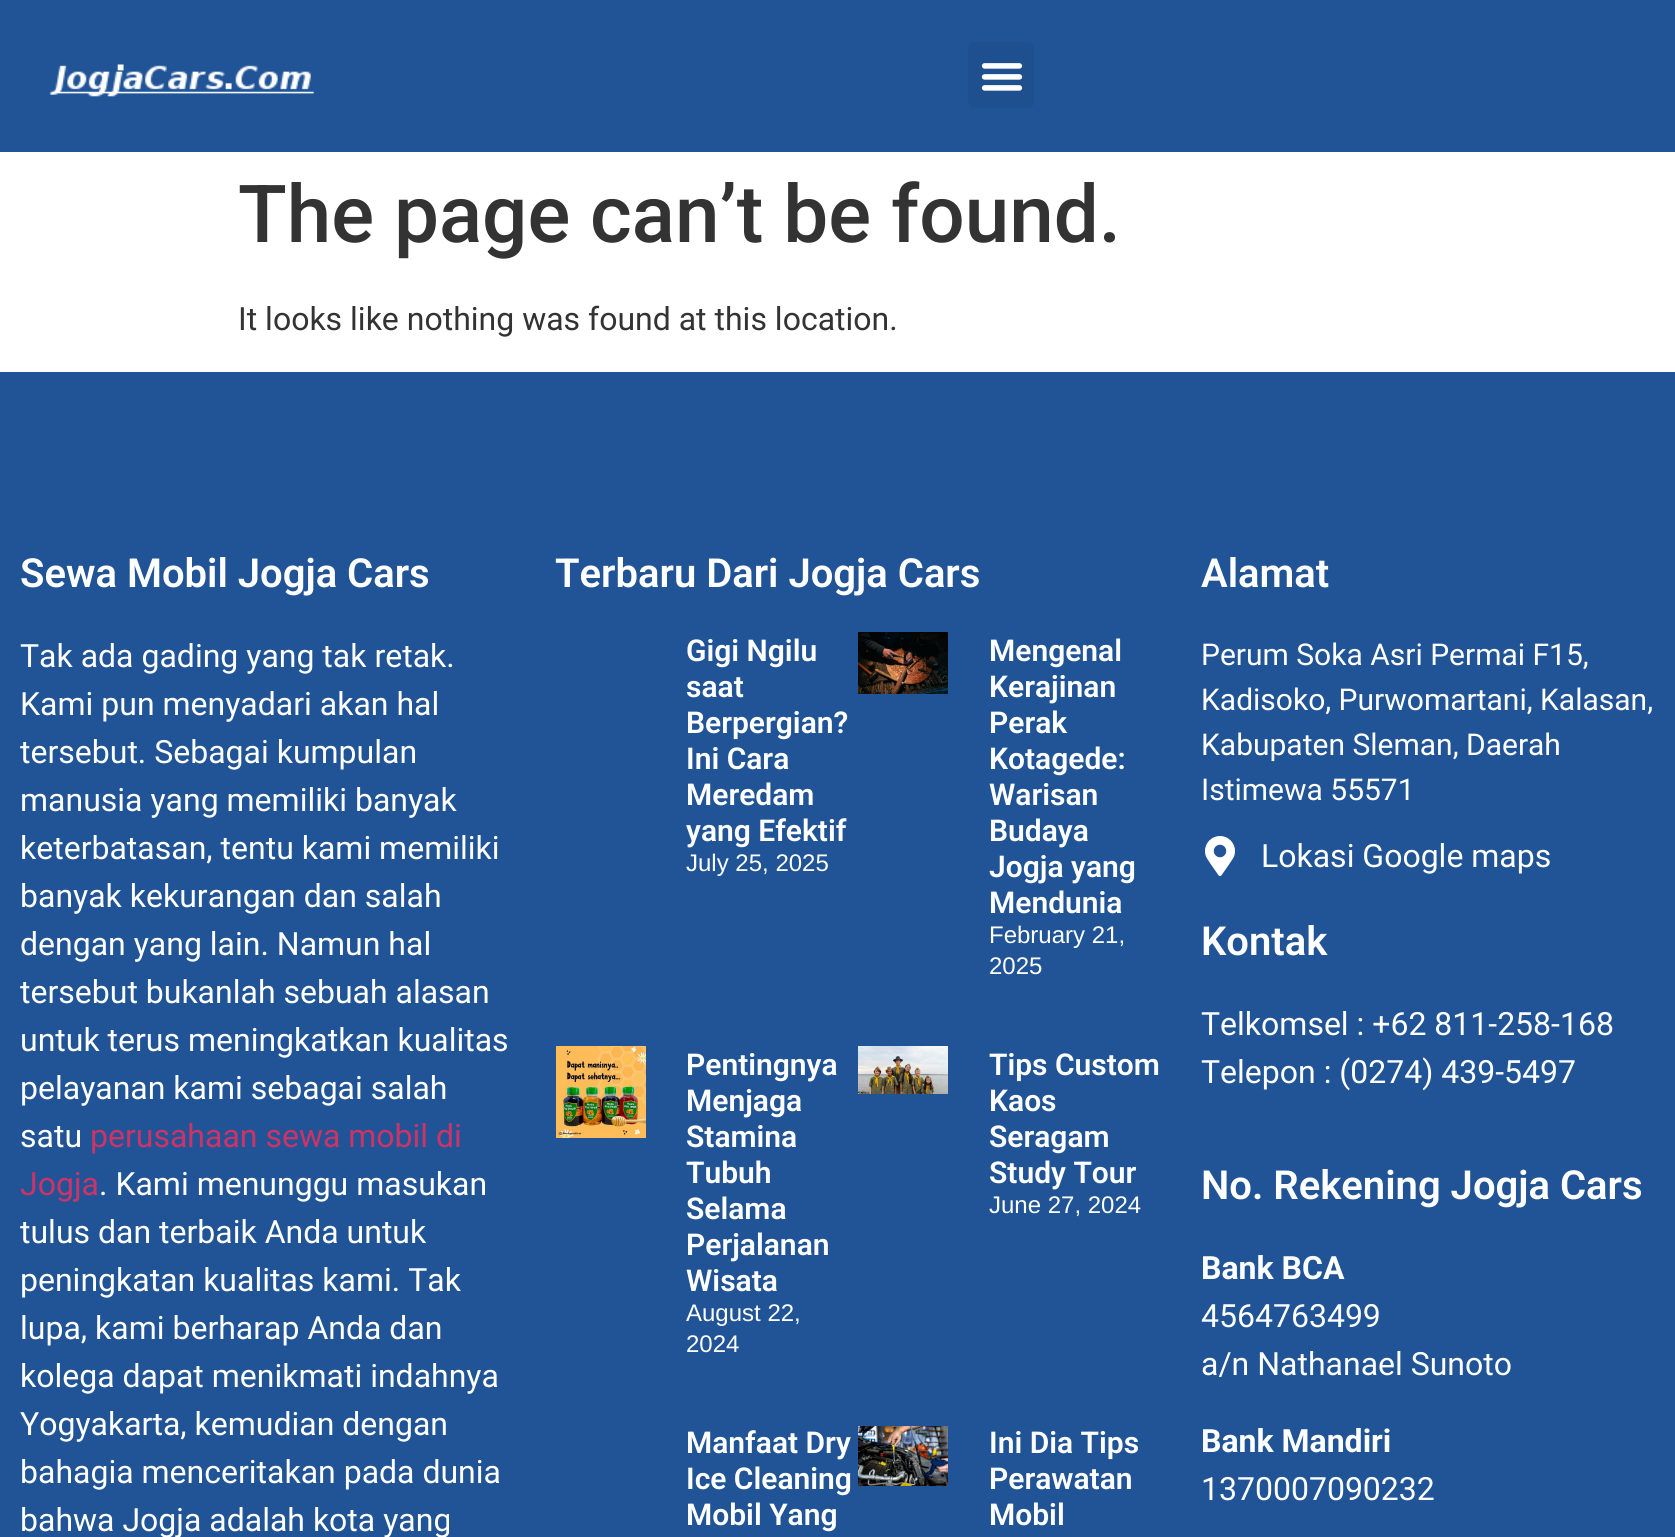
#include <cairo.h>
#include <math.h>
#include <stddef.h>

typedef struct { const char *family; double size; int italic, bold; unsigned color; } style_t;
static cairo_t *ctx;

static void ink(unsigned color) {
    cairo_set_source_rgb(ctx, (color >> 16) / 255.0, (color >> 8 & 255) / 255.0, (color & 255) / 255.0);
}

static void write(double x, double y, const char *s, const style_t *st) {
    cairo_select_font_face(ctx, st->family, st->italic ? CAIRO_FONT_SLANT_ITALIC : CAIRO_FONT_SLANT_NORMAL,
        st->bold ? CAIRO_FONT_WEIGHT_BOLD : CAIRO_FONT_WEIGHT_NORMAL);
    cairo_set_font_size(ctx, st->size);
    ink(st->color);
    cairo_move_to(ctx, x, y);
    cairo_show_text(ctx, s);
}

static void block(double x, double y, double w, double h, unsigned color) {
    ink(color);
    cairo_rectangle(ctx, x, y, w, h);
    cairo_fill(ctx);
}

static void round_path(double x, double y, double w, double h, double r) {
    cairo_new_sub_path(ctx);
    cairo_arc(ctx, x + w - r, y + h - r, r, 0, M_PI / 2);
    cairo_arc(ctx, x + r, y + h - r, r, M_PI / 2, M_PI);
    cairo_arc(ctx, x + r, y + r, r, M_PI, 1.5 * M_PI);
    cairo_arc(ctx, x + w - r, y + r, r, 1.5 * M_PI, 2 * M_PI);
    cairo_close_path(ctx);
}

static void paste(const char *path, double x, double y, double w, double h) {
    cairo_surface_t *image = cairo_image_surface_create_from_png(path);
    cairo_save(ctx);
    cairo_set_source_surface(ctx, image, x, y);
    cairo_rectangle(ctx, x, y, w, h);
    cairo_fill(ctx);
    cairo_restore(ctx);
    cairo_surface_destroy(image);
}

static const style_t s1 = {"Roboto Medium", 80, 0, 0, 0x333333};
static const style_t s2 = {"Roboto", 32, 0, 0, 0x333333};
static const style_t s3 = {"Roboto SemiBold", 40, 0, 0, 0xffffff};
static const style_t s4 = {"Roboto", 32, 0, 0, 0xffffff};
static const style_t s5 = {"Roboto", 32, 0, 0, 0xcc3366};
static const style_t s6 = {"Roboto SemiBold", 30, 0, 0, 0xffffff};
static const style_t s7 = {"Liberation Sans", 24, 0, 0, 0xffffff};
static const style_t s8 = {"Roboto", 30, 0, 0, 0xffffff};
static const style_t s9 = {"Roboto", 32, 0, 1, 0xffffff};

int main(void) {
    cairo_surface_t *surface = cairo_image_surface_create(CAIRO_FORMAT_RGB24, 1675, 1537);
    ctx = cairo_create(surface);
    cairo_font_options_t *options = cairo_font_options_create();
    cairo_font_options_set_hint_metrics(options, CAIRO_HINT_METRICS_OFF);
    cairo_font_options_set_hint_style(options, CAIRO_HINT_STYLE_NONE);
    cairo_set_font_options(ctx, options);
    cairo_set_miter_limit(ctx, 4);
    ink(0xffffff);
    cairo_paint(ctx);
    block(0, 0, 1675, 152, 0x205497);
    paste("pic1.png", 49, 64, 265, 33);
    ink(0x1e508f);
    round_path(968, 42, 66, 66, 6);
    cairo_fill(ctx);
    paste("pic2.png", 981, 63, 42, 28);
    write(238, 242, "The page can’t be found.", &s1);
    write(238, 330, "It looks like nothing was found at this location.", &s2);
    block(0, 372, 1675, 1165, 0x205497);
    write(20, 587, "Sewa Mobil Jogja Cars", &s3);
    write(20, 667, "Tak ada gading yang tak retak.", &s4);
    write(20, 715, "Kami pun menyadari akan hal", &s4);
    write(20, 763, "tersebut. Sebagai kumpulan", &s4);
    write(20, 811, "manusia yang memiliki banyak", &s4);
    write(20, 859, "keterbatasan, tentu kami memiliki", &s4);
    write(20, 907, "banyak kekurangan dan salah", &s4);
    write(20, 955, "dengan yang lain. Namun hal", &s4);
    write(20, 1003, "tersebut bukanlah sebuah alasan", &s4);
    write(20, 1051, "untuk terus meningkatkan kualitas", &s4);
    write(20, 1099, "pelayanan kami sebagai salah", &s4);
    write(20, 1147, "satu", &s4);
    write(90, 1147, "perusahaan sewa mobil di", &s5);
    write(20, 1195, "Jogja", &s5);
    write(99, 1195, ". Kami menunggu masukan", &s4);
    write(20, 1243, "tulus dan terbaik Anda untuk", &s4);
    write(20, 1291, "peningkatan kualitas kami. Tak", &s4);
    write(20, 1339, "lupa, kami berharap Anda dan", &s4);
    write(20, 1387, "kolega dapat menikmati indahnya", &s4);
    write(20, 1435, "Yogyakarta, kemudian dengan", &s4);
    write(20, 1483, "bahagia menceritakan pada dunia", &s4);
    write(20, 1531, "bahwa Jogja adalah kota yang", &s4);
    write(555, 587, "Terbaru Dari Jogja Cars", &s3);
    write(686, 661, "Gigi Ngilu", &s6);
    write(686, 697, "saat", &s6);
    write(686, 733, "Berpergian?", &s6);
    write(686, 769, "Ini Cara", &s6);
    write(686, 805, "Meredam", &s6);
    write(686, 841, "yang Efektif", &s6);
    write(686, 871, "July 25, 2025", &s7);
    paste("pic3.png", 858, 632, 90, 62);
    write(989, 661, "Mengenal", &s6);
    write(989, 697, "Kerajinan", &s6);
    write(989, 733, "Perak", &s6);
    write(989, 769, "Kotagede:", &s6);
    write(989, 805, "Warisan", &s6);
    write(989, 841, "Budaya", &s6);
    write(989, 877, "Jogja yang", &s6);
    write(989, 913, "Mendunia", &s6);
    write(989, 943, "February 21,", &s7);
    write(989, 974, "2025", &s7);
    paste("pic4.png", 556, 1046, 90, 92);
    write(686, 1075, "Pentingnya", &s6);
    write(686, 1111, "Menjaga", &s6);
    write(686, 1147, "Stamina", &s6);
    write(686, 1183, "Tubuh", &s6);
    write(686, 1219, "Selama", &s6);
    write(686, 1255, "Perjalanan", &s6);
    write(686, 1291, "Wisata", &s6);
    write(686, 1321, "August 22,", &s7);
    write(686, 1352, "2024", &s7);
    paste("pic5.png", 858, 1046, 90, 48);
    write(989, 1075, "Tips Custom", &s6);
    write(989, 1111, "Kaos", &s6);
    write(989, 1147, "Seragam", &s6);
    write(989, 1183, "Study Tour", &s6);
    write(989, 1213, "June 27, 2024", &s7);
    write(686, 1453, "Manfaat Dry", &s6);
    write(686, 1489, "Ice Cleaning", &s6);
    write(686, 1525, "Mobil Yang", &s6);
    paste("pic6.png", 858, 1426, 90, 60);
    write(989, 1453, "Ini Dia Tips", &s6);
    write(989, 1489, "Perawatan", &s6);
    write(989, 1525, "Mobil", &s6);
    write(1201, 587, "Alamat", &s3);
    write(1201, 665, "Perum Soka Asri Permai F15,", &s8);
    write(1201, 710, "Kadisoko, Purwomartani, Kalasan,", &s8);
    write(1201, 755, "Kabupaten Sleman, Daerah", &s8);
    write(1201, 800, "Istimewa 55571", &s8);
    paste("pic7.png", 1205, 836, 30, 40);
    write(1261, 867, "Lokasi Google maps", &s4);
    write(1201, 955, "Kontak", &s3);
    write(1201, 1035, "Telkomsel : +62 811-258-168", &s4);
    write(1201, 1083, "Telepon : (0274) 439-5497", &s4);
    write(1201, 1199, "No. Rekening Jogja Cars", &s3);
    write(1201, 1279, "Bank BCA", &s9);
    write(1201, 1327, "4564763499", &s4);
    write(1201, 1375, "a/n Nathanael Sunoto", &s4);
    write(1201, 1452, "Bank Mandiri", &s9);
    write(1201, 1500, "1370007090232", &s4);
    cairo_surface_write_to_png(surface, "screenshot.png");
    cairo_font_options_destroy(options);
    cairo_destroy(ctx);
    cairo_surface_destroy(surface);
    return 0;
}
